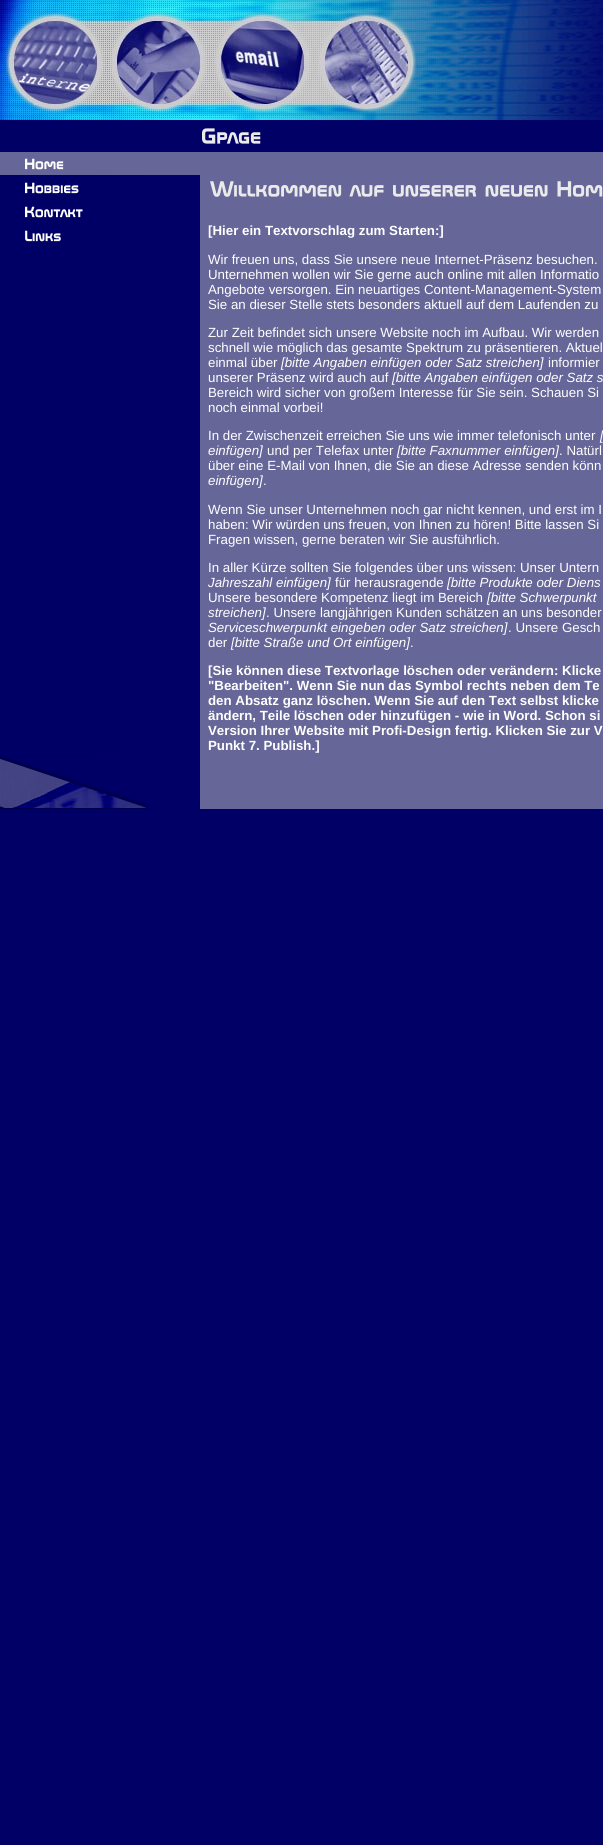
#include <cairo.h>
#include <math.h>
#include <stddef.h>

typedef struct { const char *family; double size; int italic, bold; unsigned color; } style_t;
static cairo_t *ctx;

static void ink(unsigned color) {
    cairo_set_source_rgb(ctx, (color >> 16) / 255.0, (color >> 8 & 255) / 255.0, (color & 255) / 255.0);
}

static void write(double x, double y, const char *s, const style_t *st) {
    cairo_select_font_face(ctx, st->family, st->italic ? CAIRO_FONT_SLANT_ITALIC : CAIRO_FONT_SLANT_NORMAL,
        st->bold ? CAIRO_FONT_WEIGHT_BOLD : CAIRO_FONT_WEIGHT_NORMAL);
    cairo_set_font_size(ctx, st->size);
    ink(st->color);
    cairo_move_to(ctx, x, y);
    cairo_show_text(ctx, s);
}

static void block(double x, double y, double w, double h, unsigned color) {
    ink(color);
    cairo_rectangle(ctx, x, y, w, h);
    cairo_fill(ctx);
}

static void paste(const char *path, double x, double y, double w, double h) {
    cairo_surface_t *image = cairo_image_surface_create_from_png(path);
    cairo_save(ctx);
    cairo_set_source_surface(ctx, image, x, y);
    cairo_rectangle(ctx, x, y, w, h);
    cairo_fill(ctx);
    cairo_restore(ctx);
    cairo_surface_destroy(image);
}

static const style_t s1 = {"Liberation Sans", 13.3, 0, 1, 0xffffff};
static const style_t s2 = {"Liberation Sans", 13.3, 0, 0, 0xffffff};
static const style_t s3 = {"Liberation Sans", 13.3, 1, 0, 0xffffff};

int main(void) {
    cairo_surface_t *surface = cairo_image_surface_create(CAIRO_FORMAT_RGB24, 603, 1845);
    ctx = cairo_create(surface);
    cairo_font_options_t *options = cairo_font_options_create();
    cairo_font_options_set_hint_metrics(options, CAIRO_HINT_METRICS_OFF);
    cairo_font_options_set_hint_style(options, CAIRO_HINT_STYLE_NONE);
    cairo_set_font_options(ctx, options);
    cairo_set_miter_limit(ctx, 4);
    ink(0x000066);
    cairo_paint(ctx);
    paste("pic1.png", 0, 0, 416, 120);
    paste("pic2.png", 416, 0, 184, 120);
    paste("pic3.png", 600, 0, 3, 120);
    paste("pic4.png", 1, 121, 157, 31);
    paste("pic5.png", 202, 128, 59, 16);
    paste("pic6.png", 1, 175, 157, 577);
    paste("pic7.png", 0, 152, 200, 23);
    paste("pic8.png", 25, 182, 54, 12);
    paste("pic9.png", 25, 206, 58, 12);
    paste("pic10.png", 25, 230, 36, 12);
    block(200, 152, 403, 657, 0x666699);
    paste("pic11.png", 210, 181, 393, 16);
    write(208, 235, "[Hier ein Textvorschlag zum Starten:]", &s1);
    write(208, 264, "Wir freuen uns, dass Sie unsere neue Internet-Präsenz besuchen.", &s2);
    write(208, 279, "Unternehmen wollen wir Sie gerne auch online mit allen Informatio", &s2);
    write(208, 294, "Angebote versorgen. Ein neuartiges Content-Management-System", &s2);
    write(208, 309, "Sie an dieser Stelle stets besonders aktuell auf dem Laufenden zu", &s2);
    write(208, 337, "Zur Zeit befindet sich unsere Website noch im Aufbau. Wir werden", &s2);
    write(208, 352, "schnell wie möglich das gesamte Spektrum zu präsentieren. Aktuel", &s2);
    write(208, 367, "einmal über", &s2);
    write(281, 367, "[bitte Angaben einfügen oder Satz streichen]", &s3);
    write(548, 367, "informier", &s2);
    write(208, 382, "unserer Präsenz wird auch auf", &s2);
    write(392, 382, "[bitte Angaben einfügen oder Satz s", &s3);
    write(208, 397, "Bereich wird sicher von großem Interesse für Sie sein. Schauen Si", &s2);
    write(208, 412, "noch einmal vorbei!", &s2);
    write(208, 440, "In der Zwischenzeit erreichen Sie uns wie immer telefonisch unter", &s2);
    write(600, 440, "[", &s3);
    write(208, 455, "einfügen]", &s3);
    write(267, 455, "und per Telefax unter", &s2);
    write(397, 455, "[bitte Faxnummer einfügen]", &s3);
    write(559, 455, ". Natürl", &s2);
    write(208, 470, "über eine E-Mail von Ihnen, die Sie an diese Adresse senden könn", &s2);
    write(208, 485, "einfügen]", &s3);
    write(263, 485, ".", &s2);
    write(208, 514, "Wenn Sie unser Unternehmen noch gar nicht kennen, und erst im I", &s2);
    write(208, 529, "haben: Wir würden uns freuen, von Ihnen zu hören! Bitte lassen Si", &s2);
    write(208, 544, "Fragen wissen, gerne beraten wir Sie ausführlich.", &s2);
    write(208, 572, "In aller Kürze sollten Sie folgendes über uns wissen: Unser Untern", &s2);
    write(208, 587, "Jahreszahl einfügen]", &s3);
    write(335, 587, "für herausragende", &s2);
    write(447, 587, "[bitte Produkte oder Diens", &s3);
    write(208, 602, "Unsere besondere Kompetenz liegt im Bereich", &s2);
    write(487, 602, "[bitte Schwerpunkt", &s3);
    write(208, 617, "streichen]", &s3);
    write(266, 617, ". Unsere langjährigen Kunden schätzen an uns besonder", &s2);
    write(208, 632, "Serviceschwerpunkt eingeben oder Satz streichen]", &s3);
    write(508, 632, ". Unsere Gesch", &s2);
    write(208, 647, "der", &s2);
    write(231, 647, "[bitte Straße und Ort einfügen]", &s3);
    write(410, 647, ".", &s2);
    write(208, 675, "[Sie können diese Textvorlage löschen oder verändern: Klicke", &s1);
    write(208, 690, "\"Bearbeiten\". Wenn Sie nun das Symbol rechts neben dem Te", &s1);
    write(208, 705, "den Absatz ganz löschen. Wenn Sie auf den Text selbst klicke", &s1);
    write(208, 720, "ändern, Teile löschen oder hinzufügen - wie in Word. Schon si", &s1);
    write(208, 735, "Version Ihrer Website mit Profi-Design fertig. Klicken Sie zur V", &s1);
    write(208, 750, "Punkt 7. Publish.]", &s1);
    paste("pic12.png", 0, 754, 158, 55);
    cairo_surface_write_to_png(surface, "screenshot.png");
    cairo_font_options_destroy(options);
    cairo_destroy(ctx);
    cairo_surface_destroy(surface);
    return 0;
}
